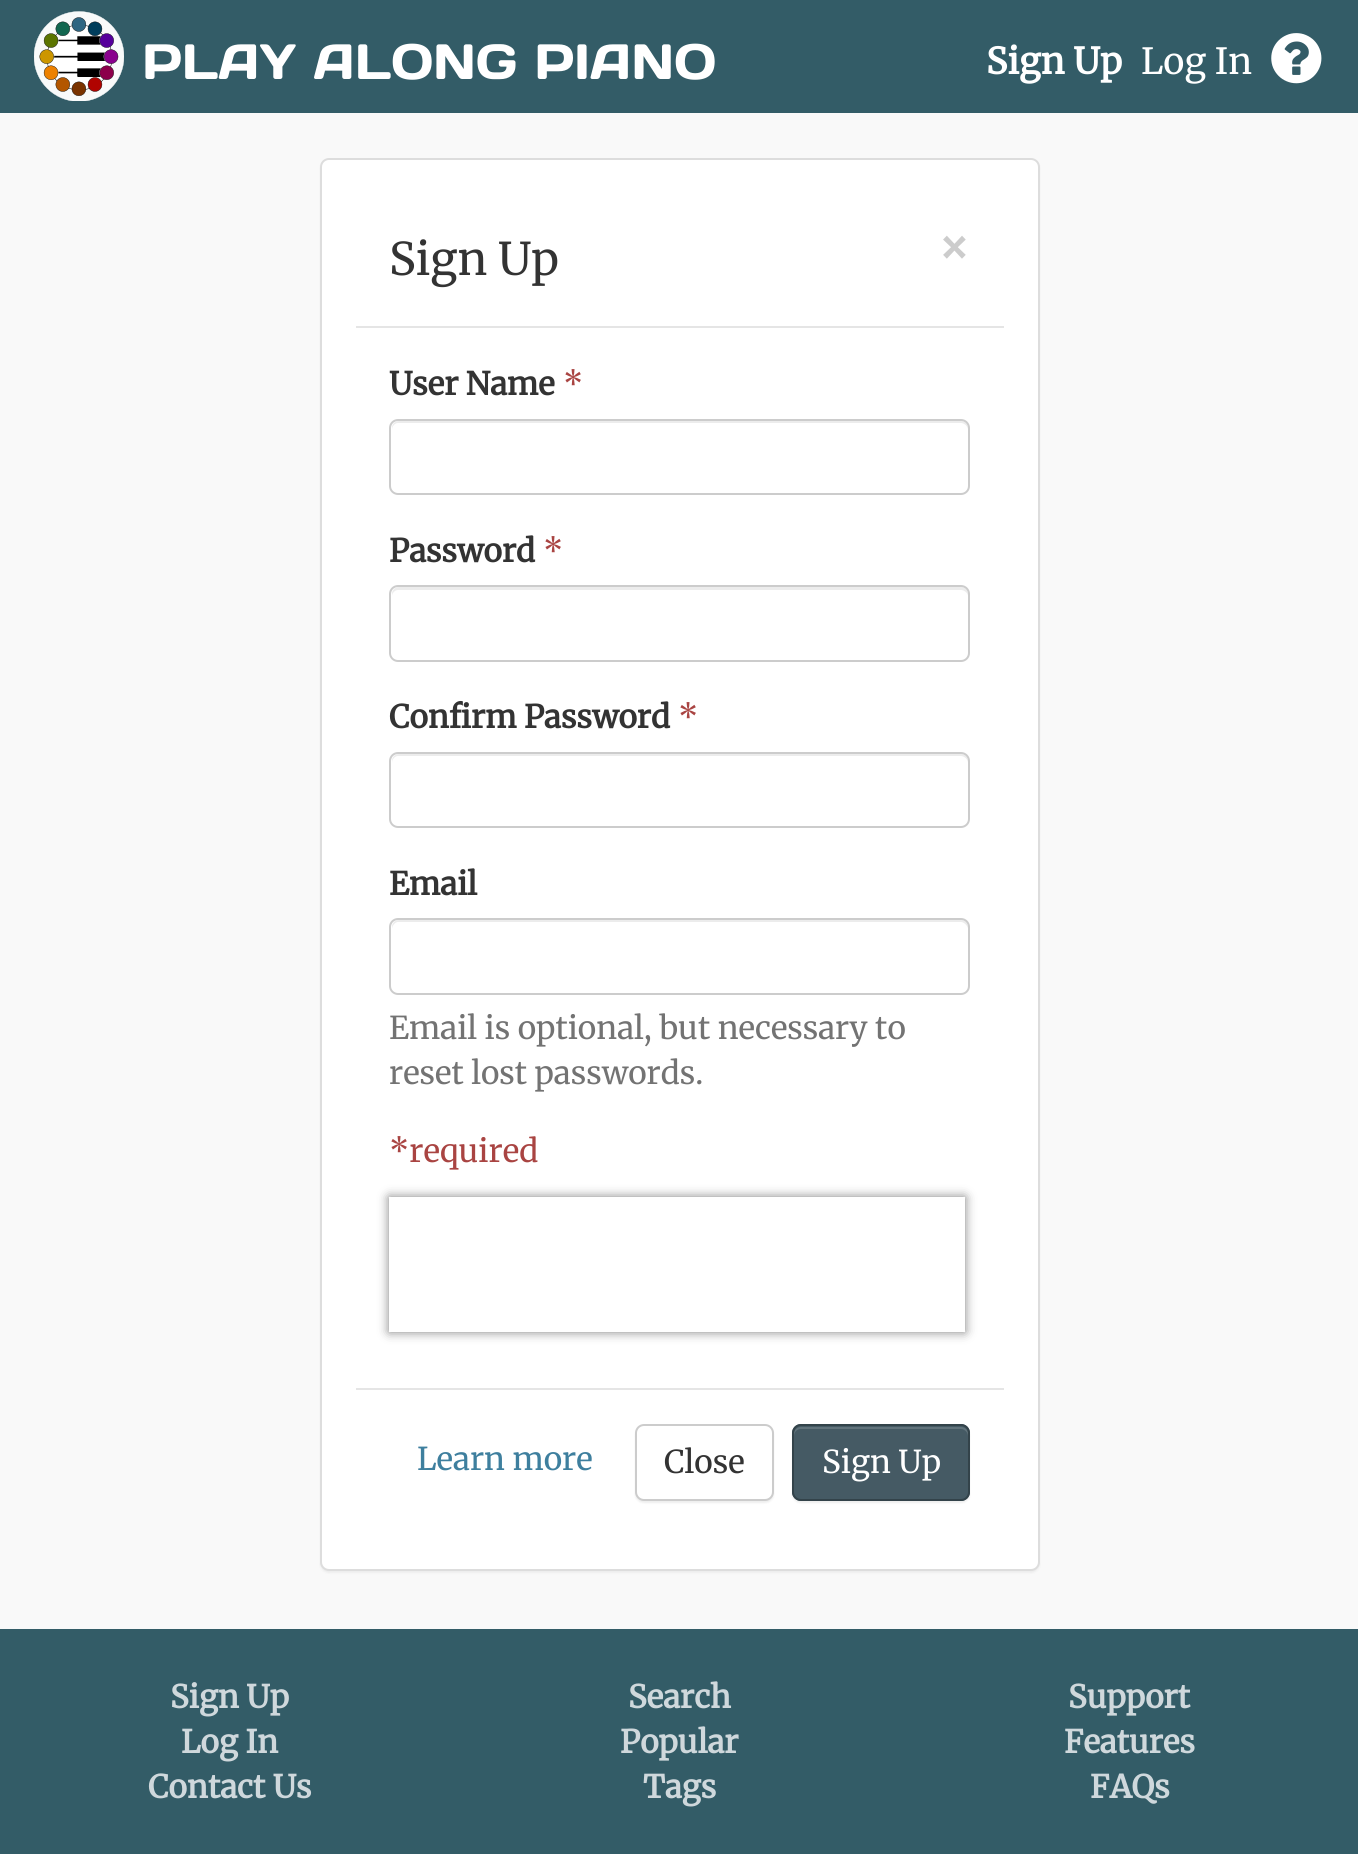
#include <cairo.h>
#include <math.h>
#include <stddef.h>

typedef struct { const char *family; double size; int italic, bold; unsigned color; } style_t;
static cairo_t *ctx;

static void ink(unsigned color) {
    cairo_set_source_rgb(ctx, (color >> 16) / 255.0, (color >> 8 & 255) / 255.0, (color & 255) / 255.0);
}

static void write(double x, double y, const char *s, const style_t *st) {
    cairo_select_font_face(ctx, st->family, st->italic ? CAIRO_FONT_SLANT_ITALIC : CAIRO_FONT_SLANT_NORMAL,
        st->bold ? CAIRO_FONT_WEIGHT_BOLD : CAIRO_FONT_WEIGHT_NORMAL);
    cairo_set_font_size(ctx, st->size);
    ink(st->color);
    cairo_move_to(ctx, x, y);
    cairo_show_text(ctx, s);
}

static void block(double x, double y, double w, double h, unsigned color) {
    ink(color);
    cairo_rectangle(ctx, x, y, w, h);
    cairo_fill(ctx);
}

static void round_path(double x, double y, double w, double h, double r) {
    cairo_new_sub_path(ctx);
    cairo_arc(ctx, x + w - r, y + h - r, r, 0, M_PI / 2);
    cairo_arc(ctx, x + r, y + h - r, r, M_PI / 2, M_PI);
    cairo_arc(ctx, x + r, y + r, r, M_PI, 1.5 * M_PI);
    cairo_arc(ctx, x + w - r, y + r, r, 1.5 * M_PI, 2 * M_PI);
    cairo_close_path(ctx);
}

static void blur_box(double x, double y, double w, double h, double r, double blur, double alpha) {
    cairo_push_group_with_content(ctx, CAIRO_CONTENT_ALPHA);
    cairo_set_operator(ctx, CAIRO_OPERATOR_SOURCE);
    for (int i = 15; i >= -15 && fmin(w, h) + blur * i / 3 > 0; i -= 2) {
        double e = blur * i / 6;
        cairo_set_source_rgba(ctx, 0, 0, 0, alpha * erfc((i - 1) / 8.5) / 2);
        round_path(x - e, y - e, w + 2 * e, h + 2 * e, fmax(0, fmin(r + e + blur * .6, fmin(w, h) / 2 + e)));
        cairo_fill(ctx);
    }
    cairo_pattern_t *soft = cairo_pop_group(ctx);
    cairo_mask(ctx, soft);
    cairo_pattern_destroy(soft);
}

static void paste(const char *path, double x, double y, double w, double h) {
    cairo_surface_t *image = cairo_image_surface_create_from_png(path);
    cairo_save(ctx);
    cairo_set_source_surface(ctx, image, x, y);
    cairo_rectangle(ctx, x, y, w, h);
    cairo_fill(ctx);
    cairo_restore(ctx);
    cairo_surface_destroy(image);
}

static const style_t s1 = {"Days One", 49.5, 0, 0, 0xffffff};
static const style_t s2 = {"Merriweather", 36, 0, 1, 0xffffff};
static const style_t s3 = {"Merriweather Light", 36, 0, 0, 0xffffff};
static const style_t s4 = {"Merriweather Light", 45, 0, 0, 0x333333};
static const style_t s5 = {"Merriweather", 47, 0, 1, 0xcccccc};
static const style_t s6 = {"Merriweather", 31.5, 0, 1, 0x333333};
static const style_t s7 = {"Merriweather Light", 31.5, 0, 0, 0xa94442};
static const style_t s8 = {"Merriweather Light", 31.5, 0, 0, 0x737373};
static const style_t s9 = {"Merriweather Light", 31.5, 0, 0, 0x3e7f9e};
static const style_t s10 = {"Merriweather Light", 31.5, 0, 0, 0x333333};
static const style_t s11 = {"Merriweather Light", 31.5, 0, 0, 0xffffff};
static const style_t s12 = {"Merriweather", 31.5, 0, 1, 0xcfd8dc};

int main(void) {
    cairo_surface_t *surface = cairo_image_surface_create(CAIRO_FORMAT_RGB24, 1358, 1854);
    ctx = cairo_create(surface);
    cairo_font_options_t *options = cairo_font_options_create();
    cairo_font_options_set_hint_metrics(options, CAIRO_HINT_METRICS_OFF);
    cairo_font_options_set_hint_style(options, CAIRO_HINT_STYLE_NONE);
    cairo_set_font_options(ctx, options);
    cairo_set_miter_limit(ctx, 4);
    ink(0xf9f9f9);
    cairo_paint(ctx);
    block(0, 0, 1358, 113, 0x335c67);
    paste("pic1.png", 34, 11, 90, 90);
    write(142, 79, "PLAY ALONG PIANO", &s1);
    write(986, 74, "Sign Up", &s2);
    write(1141, 74, "Log In", &s3);
    paste("pic2.png", 1271, 33, 51, 51);
    ink(0x000000);
    blur_box(320, 160, 720, 1413, 9, 1, 0.05);
    ink(0xffffff);
    round_path(321, 159, 718, 1411, 8);
    cairo_fill_preserve(ctx);
    ink(0xdddddd);
    cairo_stroke(ctx);
    block(356, 326, 648, 2, 0xe5e5e5);
    write(389, 275, "Sign Up", &s4);
    write(938, 263, "×", &s5);
    write(389, 395, "User Name", &s6);
    write(563, 395, "*", &s7);
    ink(0xececec);
    cairo_new_path(ctx);
    cairo_move_to(ctx, 398, 423);
    cairo_line_to(ctx, 961, 423);
    cairo_curve_to(ctx, 964, 423, 968, 426, 968, 430);
    cairo_line_to(ctx, 968, 428);
    cairo_curve_to(ctx, 968, 424, 965, 421, 961, 421);
    cairo_line_to(ctx, 399, 421);
    cairo_curve_to(ctx, 395, 421, 392, 424, 392, 428);
    cairo_line_to(ctx, 392, 430);
    cairo_curve_to(ctx, 392, 426, 395, 423, 398, 423);
    cairo_close_path(ctx);
    cairo_fill(ctx);
    round_path(390, 420, 579, 74, 8);
    ink(0xcccccc);
    cairo_stroke(ctx);
    write(389, 562, "Password", &s6);
    write(543, 562, "*", &s7);
    ink(0xececec);
    cairo_new_path(ctx);
    cairo_move_to(ctx, 398, 590);
    cairo_line_to(ctx, 961, 590);
    cairo_curve_to(ctx, 964, 590, 968, 593, 968, 596);
    cairo_line_to(ctx, 968, 594);
    cairo_curve_to(ctx, 968, 590, 965, 587, 961, 587);
    cairo_line_to(ctx, 399, 587);
    cairo_curve_to(ctx, 395, 587, 392, 590, 392, 594);
    cairo_line_to(ctx, 392, 596);
    cairo_curve_to(ctx, 392, 593, 395, 590, 398, 590);
    cairo_close_path(ctx);
    cairo_fill(ctx);
    round_path(390, 586, 579, 75, 8);
    ink(0xcccccc);
    cairo_stroke(ctx);
    write(389, 728, "Confirm Password", &s6);
    write(678, 728, "*", &s7);
    ink(0xececec);
    cairo_new_path(ctx);
    cairo_move_to(ctx, 398, 756);
    cairo_line_to(ctx, 961, 756);
    cairo_curve_to(ctx, 964, 756, 968, 759, 968, 763);
    cairo_line_to(ctx, 968, 761);
    cairo_curve_to(ctx, 968, 757, 965, 754, 961, 754);
    cairo_line_to(ctx, 399, 754);
    cairo_curve_to(ctx, 395, 754, 392, 757, 392, 761);
    cairo_line_to(ctx, 392, 763);
    cairo_curve_to(ctx, 392, 759, 395, 756, 398, 756);
    cairo_close_path(ctx);
    cairo_fill(ctx);
    round_path(390, 753, 579, 74, 8);
    ink(0xcccccc);
    cairo_stroke(ctx);
    write(389, 895, "Email", &s6);
    ink(0xececec);
    cairo_new_path(ctx);
    cairo_move_to(ctx, 398, 922);
    cairo_line_to(ctx, 961, 922);
    cairo_curve_to(ctx, 964, 922, 968, 926, 968, 929);
    cairo_line_to(ctx, 968, 927);
    cairo_curve_to(ctx, 968, 923, 965, 920, 961, 920);
    cairo_line_to(ctx, 399, 920);
    cairo_curve_to(ctx, 395, 920, 392, 923, 392, 927);
    cairo_line_to(ctx, 392, 929);
    cairo_curve_to(ctx, 392, 926, 395, 922, 398, 922);
    cairo_close_path(ctx);
    cairo_fill(ctx);
    round_path(390, 919, 579, 75, 8);
    ink(0xcccccc);
    cairo_stroke(ctx);
    write(389, 1039, "Email is optional, but necessary to", &s8);
    write(389, 1084, "reset lost passwords.", &s8);
    write(389, 1162, "*required", &s7);
    cairo_save(ctx);
    cairo_set_fill_rule(ctx, CAIRO_FILL_RULE_EVEN_ODD);
    cairo_new_path(ctx);
    cairo_move_to(ctx, 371, 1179);
    cairo_line_to(ctx, 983, 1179);
    cairo_line_to(ctx, 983, 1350);
    cairo_line_to(ctx, 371, 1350);
    cairo_close_path(ctx);
    cairo_move_to(ctx, 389, 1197);
    cairo_line_to(ctx, 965, 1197);
    cairo_line_to(ctx, 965, 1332);
    cairo_line_to(ctx, 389, 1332);
    cairo_close_path(ctx);
    cairo_clip(ctx);
    ink(0x808080);
    blur_box(389, 1197, 576, 135, 0, 5.5, 1);
    cairo_restore(ctx);
    block(356, 1388, 648, 2, 0xe5e5e5);
    write(417, 1470, "Learn more", &s9);
    ink(0x000000);
    blur_box(635, 1427, 139, 76, 9, 1, 0.07);
    ink(0xffffff);
    round_path(636, 1425, 137, 75, 8);
    cairo_fill_preserve(ctx);
    ink(0xcccccc);
    cairo_stroke(ctx);
    write(664, 1473, "Close", &s10);
    ink(0x000000);
    blur_box(792, 1427, 178, 76, 9, 1, 0.07);
    ink(0x455a64);
    round_path(792, 1424, 178, 77, 9);
    cairo_fill(ctx);
    ink(0x61737b);
    cairo_new_path(ctx);
    cairo_move_to(ctx, 801, 1429);
    cairo_line_to(ctx, 961, 1429);
    cairo_curve_to(ctx, 964, 1429, 968, 1432, 968, 1436);
    cairo_line_to(ctx, 968, 1434);
    cairo_curve_to(ctx, 968, 1430, 965, 1427, 961, 1427);
    cairo_line_to(ctx, 801, 1427);
    cairo_curve_to(ctx, 797, 1427, 794, 1430, 794, 1434);
    cairo_line_to(ctx, 794, 1436);
    cairo_curve_to(ctx, 794, 1432, 797, 1429, 801, 1429);
    cairo_close_path(ctx);
    cairo_fill(ctx);
    round_path(793, 1425, 176, 75, 8);
    ink(0x33434a);
    cairo_stroke(ctx);
    write(822, 1473, "Sign Up", &s11);
    block(0, 1629, 1358, 225, 0x335c67);
    write(170, 1708, "Sign Up", &s12);
    write(181, 1753, "Log In", &s12);
    write(148, 1798, "Contact Us", &s12);
    write(628, 1708, "Search", &s12);
    write(620, 1753, "Popular", &s12);
    write(643, 1798, "Tags", &s12);
    write(1068, 1708, "Support", &s12);
    write(1064, 1753, "Features", &s12);
    write(1090, 1798, "FAQs", &s12);
    cairo_surface_write_to_png(surface, "screenshot.png");
    cairo_font_options_destroy(options);
    cairo_destroy(ctx);
    cairo_surface_destroy(surface);
    return 0;
}
